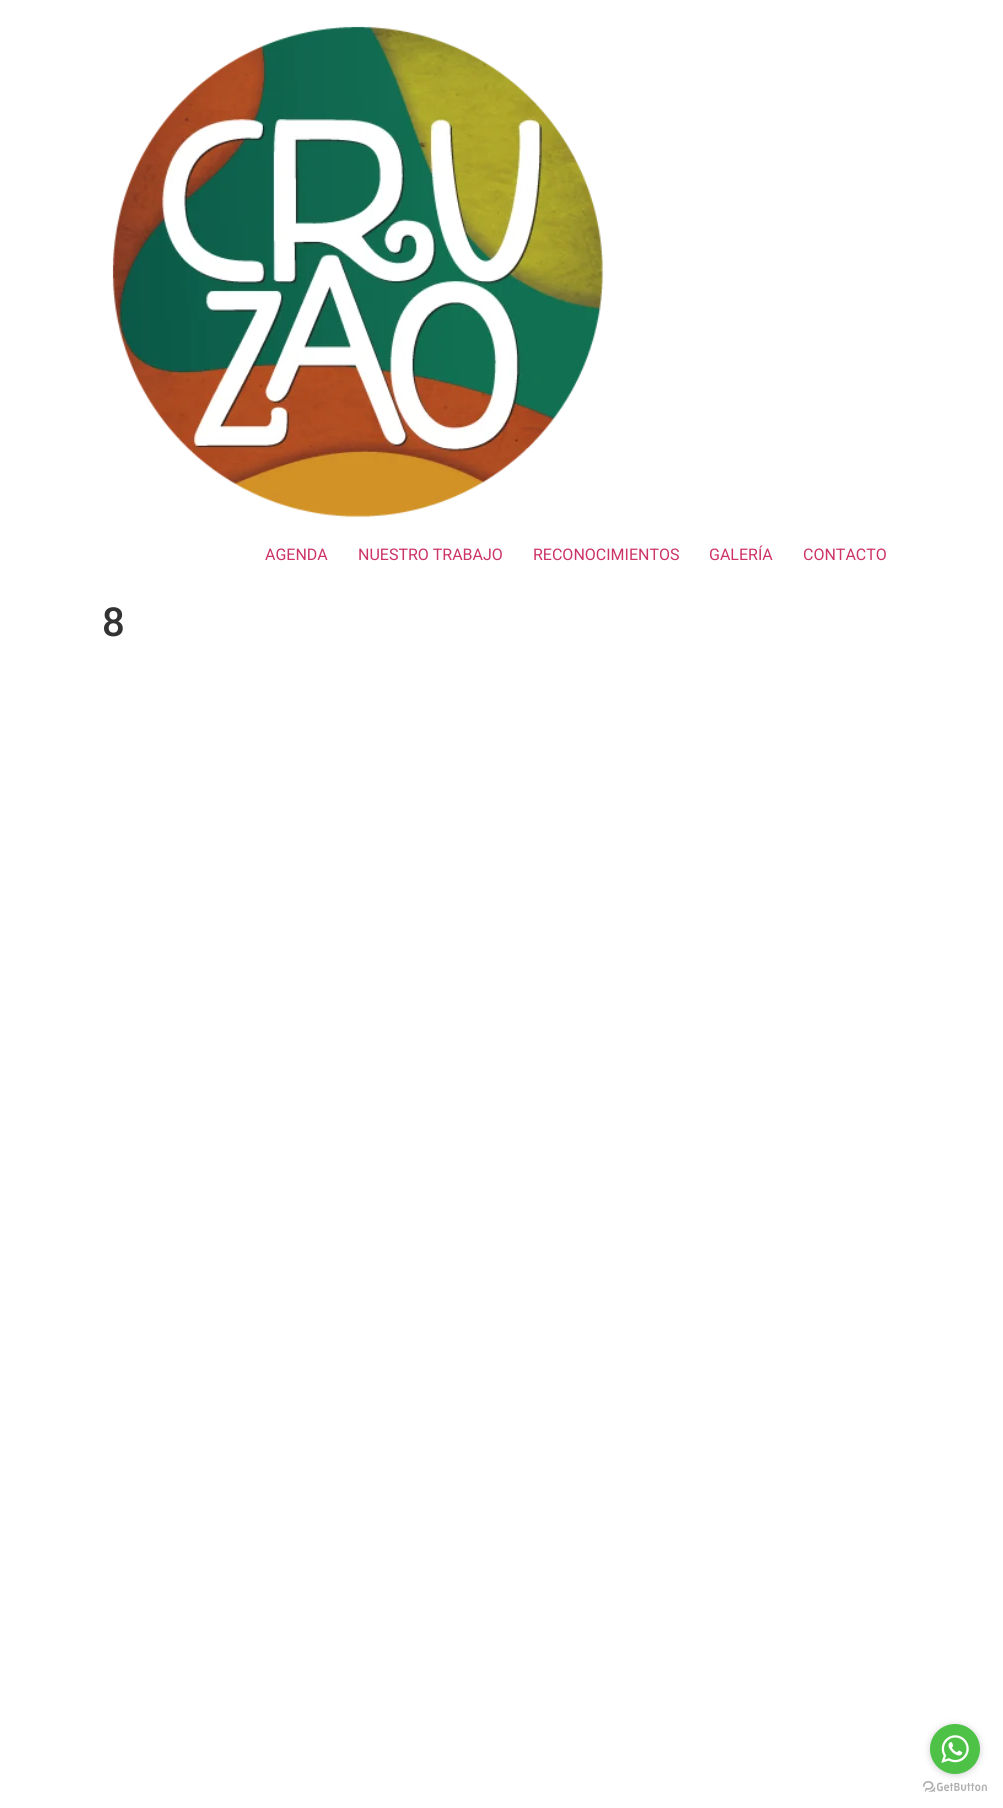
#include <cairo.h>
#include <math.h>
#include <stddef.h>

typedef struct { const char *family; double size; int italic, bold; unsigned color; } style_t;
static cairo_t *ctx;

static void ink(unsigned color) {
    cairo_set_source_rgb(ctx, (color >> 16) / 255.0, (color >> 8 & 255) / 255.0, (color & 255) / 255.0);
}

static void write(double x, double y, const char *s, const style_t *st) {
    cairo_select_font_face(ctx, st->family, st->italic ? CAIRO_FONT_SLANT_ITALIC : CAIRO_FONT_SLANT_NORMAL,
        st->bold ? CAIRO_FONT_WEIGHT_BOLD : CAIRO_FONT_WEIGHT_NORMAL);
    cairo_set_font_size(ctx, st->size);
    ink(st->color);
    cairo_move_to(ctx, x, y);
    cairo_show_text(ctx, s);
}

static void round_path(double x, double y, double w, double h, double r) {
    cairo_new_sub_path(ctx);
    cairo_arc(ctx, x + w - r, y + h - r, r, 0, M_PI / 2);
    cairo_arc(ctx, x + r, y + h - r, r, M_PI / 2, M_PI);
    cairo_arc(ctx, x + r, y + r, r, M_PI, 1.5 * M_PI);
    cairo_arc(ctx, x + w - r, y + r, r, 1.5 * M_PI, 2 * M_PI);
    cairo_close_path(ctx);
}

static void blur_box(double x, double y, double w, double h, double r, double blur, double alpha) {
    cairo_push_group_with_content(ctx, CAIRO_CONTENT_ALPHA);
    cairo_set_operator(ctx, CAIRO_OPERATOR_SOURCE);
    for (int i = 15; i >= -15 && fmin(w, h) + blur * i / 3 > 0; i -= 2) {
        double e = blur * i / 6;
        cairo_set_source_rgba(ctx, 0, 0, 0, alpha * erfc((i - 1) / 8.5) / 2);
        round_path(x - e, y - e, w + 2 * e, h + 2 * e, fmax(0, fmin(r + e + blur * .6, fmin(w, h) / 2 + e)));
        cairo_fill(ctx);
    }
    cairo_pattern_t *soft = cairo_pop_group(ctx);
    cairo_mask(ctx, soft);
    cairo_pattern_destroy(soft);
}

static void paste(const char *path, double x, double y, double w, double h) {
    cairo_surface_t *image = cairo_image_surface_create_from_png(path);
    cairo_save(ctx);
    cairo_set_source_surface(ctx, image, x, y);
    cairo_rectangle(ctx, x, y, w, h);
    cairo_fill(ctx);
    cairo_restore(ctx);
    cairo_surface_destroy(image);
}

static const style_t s1 = {"Roboto", 16, 0, 0, 0xcc3366};
static const style_t s2 = {"Roboto Medium", 40, 0, 0, 0x333333};

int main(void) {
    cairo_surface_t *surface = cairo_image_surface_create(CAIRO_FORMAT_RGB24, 1003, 1808);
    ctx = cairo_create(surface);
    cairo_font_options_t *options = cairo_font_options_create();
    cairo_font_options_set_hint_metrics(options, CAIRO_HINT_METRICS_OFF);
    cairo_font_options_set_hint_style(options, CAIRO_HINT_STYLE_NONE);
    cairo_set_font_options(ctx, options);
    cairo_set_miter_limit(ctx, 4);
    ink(0xffffff);
    cairo_paint(ctx);
    paste("pic1.png", 112, 26, 492, 492);
    write(265, 560, "AGENDA", &s1);
    write(358, 560, "NUESTRO TRABAJO", &s1);
    write(533, 560, "RECONOCIMIENTOS", &s1);
    write(709, 560, "GALERÍA", &s1);
    write(803, 560, "CONTACTO", &s1);
    write(102, 636, "8", &s2);
    paste("pic3.png", 923, 1781, 64, 11);
    ink(0x888888);
    blur_box(930, 1725, 50, 50, 25, 3.5, 0.4);
    ink(0x4dc247);
    cairo_arc(ctx, 955, 1749, 25, 0, 2 * M_PI);
    cairo_fill(ctx);
    paste("pic2.png", 941, 1735, 28, 28);
    cairo_surface_write_to_png(surface, "screenshot.png");
    cairo_font_options_destroy(options);
    cairo_destroy(ctx);
    cairo_surface_destroy(surface);
    return 0;
}
